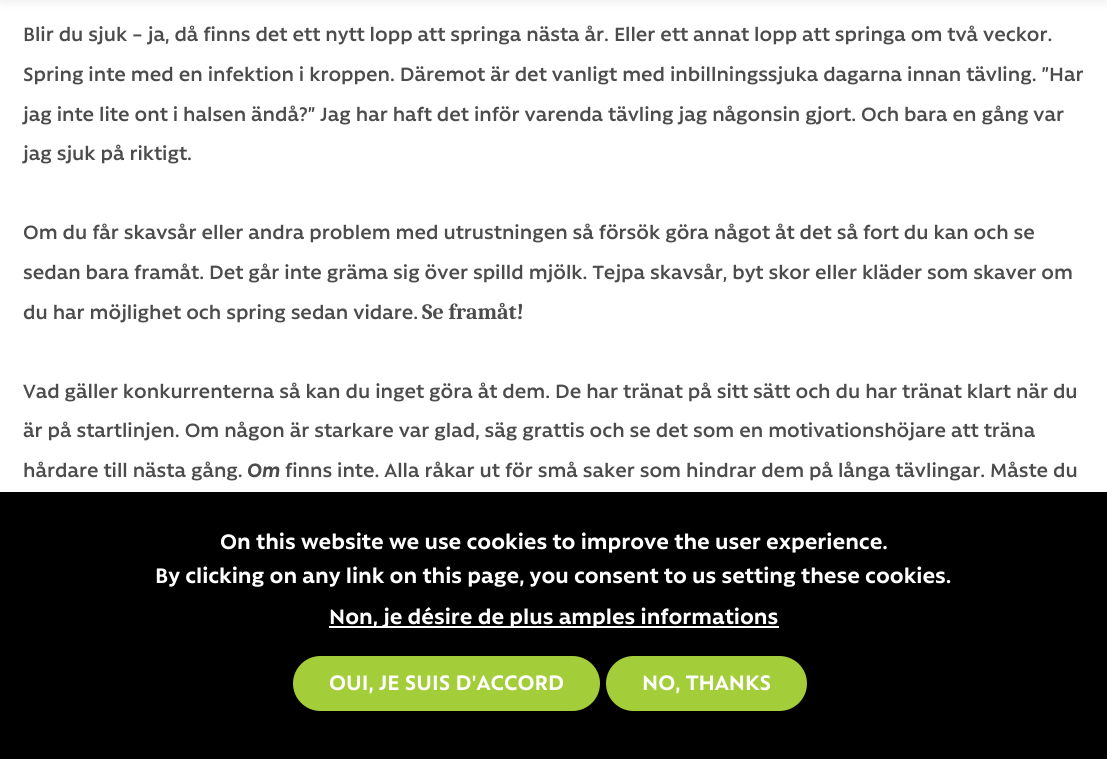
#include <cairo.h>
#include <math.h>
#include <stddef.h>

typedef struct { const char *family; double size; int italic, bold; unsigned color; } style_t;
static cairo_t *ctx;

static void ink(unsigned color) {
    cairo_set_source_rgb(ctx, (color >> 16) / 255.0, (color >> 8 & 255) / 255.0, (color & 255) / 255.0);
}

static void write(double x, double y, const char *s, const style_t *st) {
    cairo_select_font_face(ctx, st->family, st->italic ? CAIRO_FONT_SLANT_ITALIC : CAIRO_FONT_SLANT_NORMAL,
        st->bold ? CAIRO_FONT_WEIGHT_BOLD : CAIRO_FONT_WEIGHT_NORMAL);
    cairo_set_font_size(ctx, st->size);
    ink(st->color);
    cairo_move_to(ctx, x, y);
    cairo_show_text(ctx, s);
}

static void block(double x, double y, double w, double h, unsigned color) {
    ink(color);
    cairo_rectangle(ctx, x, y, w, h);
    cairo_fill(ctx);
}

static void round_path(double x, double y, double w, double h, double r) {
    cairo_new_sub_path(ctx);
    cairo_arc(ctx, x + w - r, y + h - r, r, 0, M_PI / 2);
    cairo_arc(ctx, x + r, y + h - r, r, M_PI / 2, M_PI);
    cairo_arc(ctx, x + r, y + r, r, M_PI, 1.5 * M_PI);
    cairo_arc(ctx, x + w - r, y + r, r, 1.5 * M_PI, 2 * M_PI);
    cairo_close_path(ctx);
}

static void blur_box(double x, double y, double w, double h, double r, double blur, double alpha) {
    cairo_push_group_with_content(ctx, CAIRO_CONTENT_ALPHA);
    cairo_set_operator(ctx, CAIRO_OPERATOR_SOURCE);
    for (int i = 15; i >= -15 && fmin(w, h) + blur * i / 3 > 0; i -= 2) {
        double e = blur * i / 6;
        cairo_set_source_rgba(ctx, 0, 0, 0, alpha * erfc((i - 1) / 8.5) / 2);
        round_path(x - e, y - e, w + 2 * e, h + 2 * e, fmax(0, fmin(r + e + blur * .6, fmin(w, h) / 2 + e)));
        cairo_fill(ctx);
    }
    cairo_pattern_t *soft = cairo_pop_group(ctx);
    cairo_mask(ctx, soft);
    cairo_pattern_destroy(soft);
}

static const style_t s1 = {"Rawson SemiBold", 22, 0, 0, 0x4c4c4c};
static const style_t s2 = {"Caladea", 22, 0, 1, 0x4c4c4c};
static const style_t s3 = {"Rawson", 22, 1, 1, 0x4c4c4c};
static const style_t s4 = {"Rawson", 24, 0, 1, 0xffffff};

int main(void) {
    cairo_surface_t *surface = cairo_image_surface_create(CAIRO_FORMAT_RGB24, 1107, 759);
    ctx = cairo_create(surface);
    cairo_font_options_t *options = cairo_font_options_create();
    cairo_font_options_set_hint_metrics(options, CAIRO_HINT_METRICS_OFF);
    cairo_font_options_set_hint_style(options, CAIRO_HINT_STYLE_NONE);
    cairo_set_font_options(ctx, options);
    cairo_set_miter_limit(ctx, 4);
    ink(0xffffff);
    cairo_paint(ctx);
    ink(0x000000);
    blur_box(0, -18, 1107, 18, 0, 6, 0.1);
    write(23, 41, "Blir du sjuk – ja, då finns det ett nytt lopp att springa nästa år. Eller ett annat lopp att springa om två veckor.", &s1);
    write(23, 81, "Spring inte med en infektion i kroppen. Däremot är det vanligt med inbillningssjuka dagarna innan tävling. ”Har", &s1);
    write(23, 121, "jag inte lite ont i halsen ändå?” Jag har haft det inför varenda tävling jag någonsin gjort. Och bara en gång var", &s1);
    write(23, 160, "jag sjuk på riktigt.", &s1);
    write(23, 239, "Om du får skavsår eller andra problem med utrustningen så försök göra något åt det så fort du kan och se", &s1);
    write(23, 279, "sedan bara framåt. Det går inte gräma sig över spilld mjölk. Tejpa skavsår, byt skor eller kläder som skaver om", &s1);
    write(23, 319, "du har möjlighet och spring sedan vidare.", &s1);
    write(422, 319, "Se framåt!", &s2);
    write(23, 398, "Vad gäller konkurrenterna så kan du inget göra åt dem. De har tränat på sitt sätt och du har tränat klart när du", &s1);
    write(23, 437, "är på startlinjen. Om någon är starkare var glad, säg grattis och se det som en motivationshöjare att träna", &s1);
    write(23, 477, "hårdare till nästa gång.", &s1);
    write(247, 477, "Om", &s3);
    write(285, 477, "finns inte. Alla råkar ut för små saker som hindrar dem på långa tävlingar. Måste du", &s1);
    block(0, 492, 1107, 267, 0x000000);
    write(220, 549, "On this website we use cookies to improve the user experience.", &s4);
    write(155, 583, "By clicking on any link on this page, you consent to us setting these cookies.", &s4);
    block(329, 626, 450, 2, 0xffffff);
    write(329, 624, "Non, je désire de plus amples informations", &s4);
    ink(0xa3cd39);
    round_path(293, 656, 307, 55, 27.5);
    cairo_fill(ctx);
    write(329, 690, "OUI, JE SUIS D'ACCORD", &s4);
    ink(0xa3cd39);
    round_path(606, 656, 201, 55, 27.5);
    cairo_fill(ctx);
    write(642, 690, "NO, THANKS", &s4);
    cairo_surface_write_to_png(surface, "screenshot.png");
    cairo_font_options_destroy(options);
    cairo_destroy(ctx);
    cairo_surface_destroy(surface);
    return 0;
}
